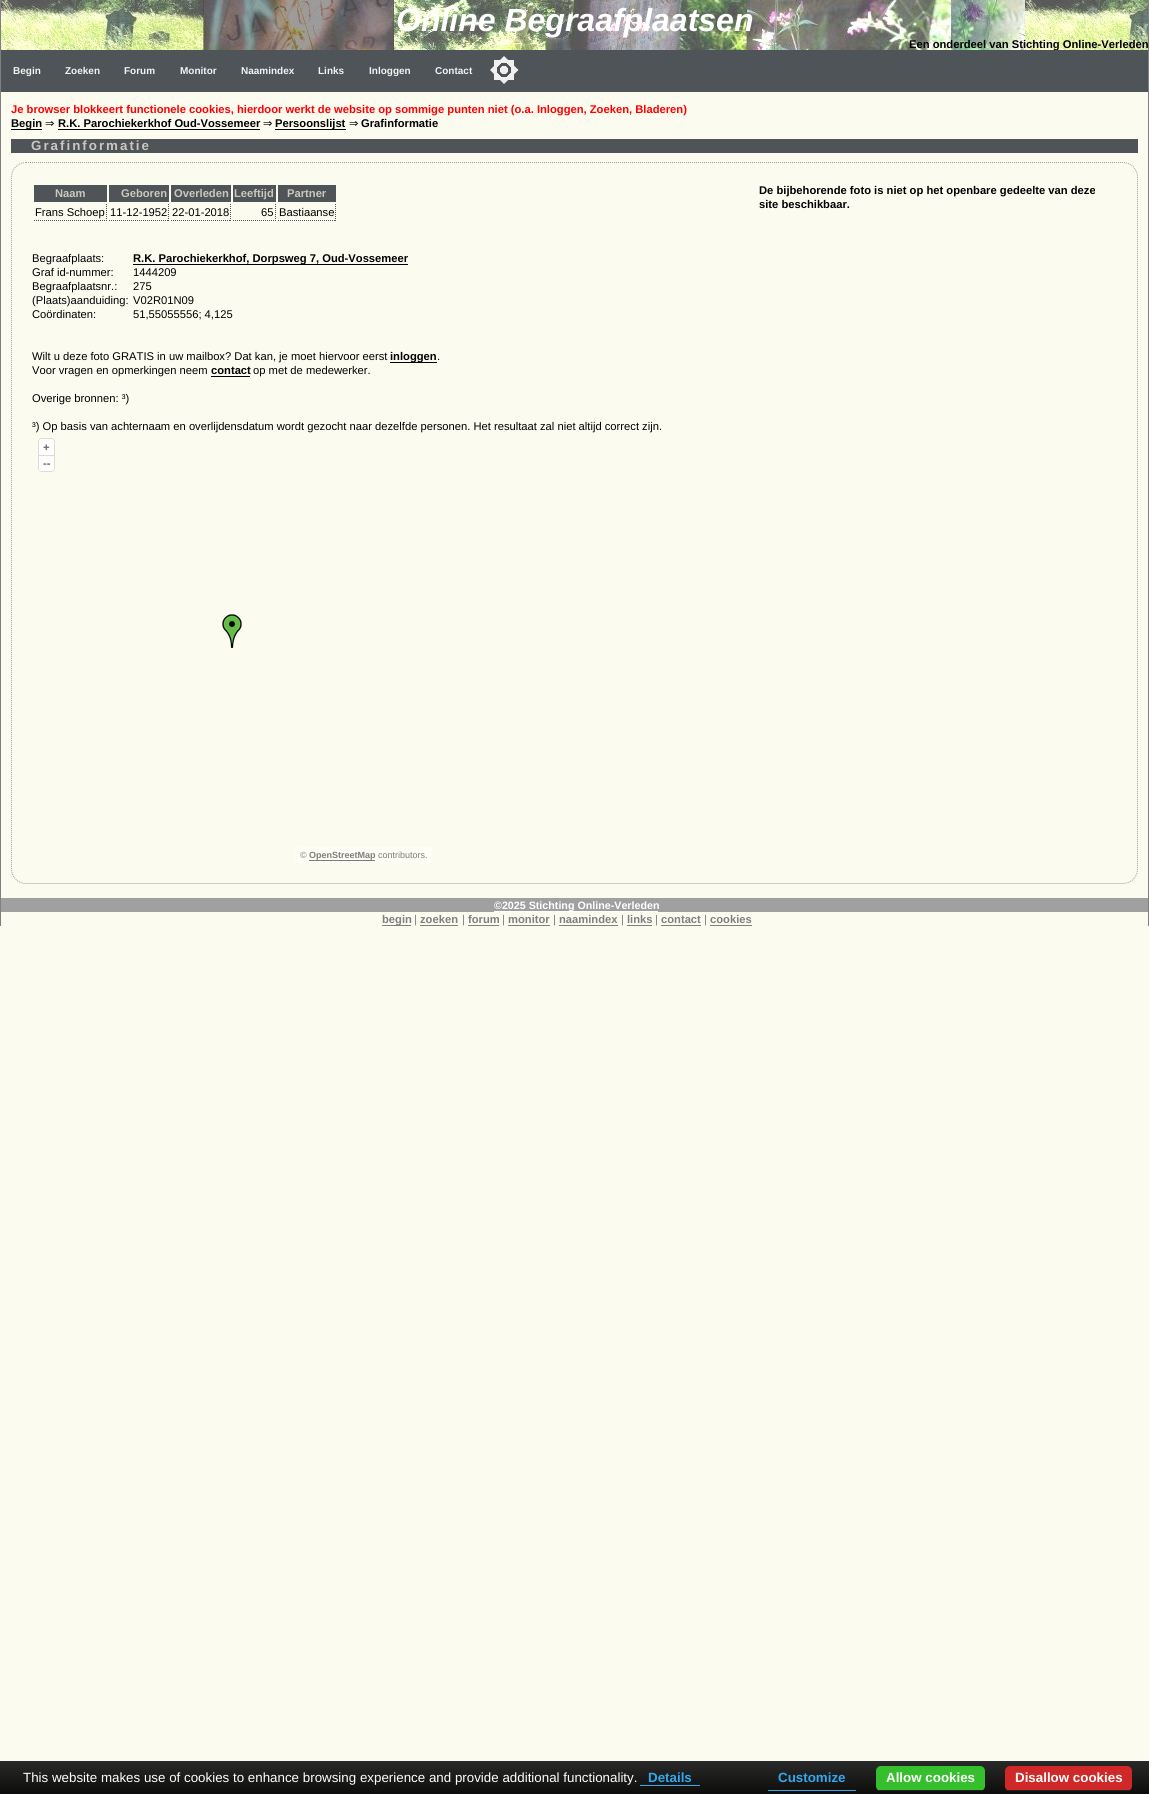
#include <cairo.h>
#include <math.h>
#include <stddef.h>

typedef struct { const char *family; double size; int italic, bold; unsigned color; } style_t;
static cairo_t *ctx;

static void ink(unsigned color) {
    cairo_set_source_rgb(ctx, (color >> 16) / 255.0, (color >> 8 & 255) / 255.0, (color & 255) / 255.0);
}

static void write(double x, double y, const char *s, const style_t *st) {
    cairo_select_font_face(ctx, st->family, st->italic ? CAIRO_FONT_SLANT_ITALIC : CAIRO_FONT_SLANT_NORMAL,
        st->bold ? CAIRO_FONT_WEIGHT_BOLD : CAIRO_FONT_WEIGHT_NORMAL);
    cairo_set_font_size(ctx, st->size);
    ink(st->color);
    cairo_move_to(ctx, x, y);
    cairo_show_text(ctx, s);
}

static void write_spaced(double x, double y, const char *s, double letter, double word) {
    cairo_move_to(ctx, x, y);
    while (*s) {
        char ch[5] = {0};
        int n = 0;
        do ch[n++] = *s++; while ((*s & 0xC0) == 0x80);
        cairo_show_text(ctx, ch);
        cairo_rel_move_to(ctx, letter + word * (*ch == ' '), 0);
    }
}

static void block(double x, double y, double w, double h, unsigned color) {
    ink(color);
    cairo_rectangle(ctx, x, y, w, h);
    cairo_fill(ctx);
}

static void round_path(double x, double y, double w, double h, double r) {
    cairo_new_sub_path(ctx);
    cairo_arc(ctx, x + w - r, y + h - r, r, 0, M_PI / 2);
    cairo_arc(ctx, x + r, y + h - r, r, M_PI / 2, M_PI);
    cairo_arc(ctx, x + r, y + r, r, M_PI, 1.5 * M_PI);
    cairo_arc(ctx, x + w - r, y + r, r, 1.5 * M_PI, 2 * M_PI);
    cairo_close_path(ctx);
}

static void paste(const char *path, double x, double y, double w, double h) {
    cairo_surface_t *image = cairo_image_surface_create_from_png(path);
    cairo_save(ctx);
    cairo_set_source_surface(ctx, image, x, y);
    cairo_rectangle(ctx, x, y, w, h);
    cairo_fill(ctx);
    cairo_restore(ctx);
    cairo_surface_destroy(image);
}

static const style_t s1 = {"Liberation Sans", 32, 1, 1, 0xffffff};
static const style_t s2 = {"Liberation Sans", 11.2, 0, 1, 0x000000};
static const style_t s3 = {"Liberation Sans", 10, 0, 1, 0xf2f2f2};
static const style_t s4 = {"Liberation Sans", 11.2, 0, 1, 0xff0000};
static const style_t s5 = {"DejaVu Sans", 11.2, 0, 0, 0x000000};
static const style_t s6 = {"Liberation Sans", 11.2, 0, 1, 0xcbc7c0};
static const style_t s7 = {"Liberation Sans", 11.2, 0, 0, 0x000000};
static const style_t s8 = {"Liberation Sans", 11.2, 0, 1, 0x666666};
static const style_t s9 = {"Liberation Sans", 9, 0, 0, 0x7e7e78};
static const style_t s10 = {"Liberation Sans", 9, 0, 1, 0x7e7e78};
static const style_t s11 = {"Liberation Sans", 10.7, 0, 1, 0xffffff};
static const style_t s12 = {"Liberation Sans", 11.2, 0, 1, 0x808080};
static const style_t s13 = {"Liberation Sans", 11.2, 0, 0, 0x808080};
static const style_t s14 = {"Liberation Sans", 13.35, 0, 0, 0xffffff};
static const style_t s15 = {"Liberation Sans", 13.35, 0, 1, 0x31a8f0};
static const style_t s16 = {"Liberation Sans", 13.35, 0, 1, 0xffffff};

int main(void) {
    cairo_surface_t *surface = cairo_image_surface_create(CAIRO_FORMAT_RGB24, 1149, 1794);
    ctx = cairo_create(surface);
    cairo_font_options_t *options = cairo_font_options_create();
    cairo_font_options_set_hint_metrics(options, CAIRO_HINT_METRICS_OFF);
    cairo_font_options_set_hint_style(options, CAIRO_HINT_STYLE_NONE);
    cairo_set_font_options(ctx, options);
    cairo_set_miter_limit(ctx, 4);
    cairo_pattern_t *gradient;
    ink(0xfcfbf0);
    cairo_paint(ctx);
    block(1148, 0, 1, 926, 0x808080);
    block(0, 0, 1, 926, 0x808080);
    paste("pic1.png", 1, 0, 1147, 50);
    write(396, 31, "Online Begraafplaatsen", &s1);
    write(909, 48, "Een onderdeel van Stichting Online-Verleden", &s2);
    block(1, 50, 1147, 42, 0x4e5457);
    write(13, 74, "Begin", &s3);
    write(65, 74, "Zoeken", &s3);
    write(124, 74, "Forum", &s3);
    write(180, 74, "Monitor", &s3);
    write(241, 74, "Naamindex", &s3);
    write(318, 74, "Links", &s3);
    write(369, 74, "Inloggen", &s3);
    write(435, 74, "Contact", &s3);
    gradient = cairo_pattern_create_radial(504, 70, 0, 504, 70, 14);
    cairo_pattern_add_color_stop_rgba(gradient, 0, 0.306, 0.329, 0.341, 1);
    cairo_pattern_add_color_stop_rgba(gradient, 0.5, 0.306, 0.329, 0.341, 1);
    cairo_pattern_add_color_stop_rgba(gradient, 0.5, 0.941, 0.941, 0.941, 1);
    cairo_set_source(ctx, gradient);
    cairo_pattern_destroy(gradient);
    cairo_rectangle(ctx, 494, 60, 20, 20);
    cairo_fill(ctx);
    gradient = cairo_pattern_create_radial(504, 70, 0, 504, 70, 14);
    cairo_pattern_add_color_stop_rgba(gradient, 0.3, 0.941, 0.941, 0.941, 1);
    cairo_pattern_add_color_stop_rgba(gradient, 0.31, 0.941, 0.941, 0.941, 0);
    cairo_pattern_add_color_stop_rgba(gradient, 0.5, 0.941, 0.941, 0.941, 0);
    cairo_pattern_add_color_stop_rgba(gradient, 0.5, 0.941, 0.941, 0.941, 1);
    cairo_set_source(ctx, gradient);
    cairo_pattern_destroy(gradient);
    cairo_new_path(ctx);
    cairo_move_to(ctx, 504, 84);
    cairo_line_to(ctx, 490, 70);
    cairo_line_to(ctx, 504, 56);
    cairo_line_to(ctx, 518.5, 70);
    cairo_close_path(ctx);
    cairo_fill(ctx);
    ink(0x4e5457);
    cairo_new_path(ctx);
    cairo_move_to(ctx, 500.5, 67.5);
    cairo_line_to(ctx, 498.5, 66.5);
    cairo_line_to(ctx, 500, 66.5);
    cairo_close_path(ctx);
    cairo_fill(ctx);
    write(11, 113, "Je browser blokkeert functionele cookies, hierdoor werkt de website op sommige punten niet (o.a. Inloggen, Zoeken, Bladeren)", &s4);
    block(11, 129, 31, 1, 0x000000);
    write(11, 127, "Begin", &s2);
    write(45, 127, "⇒", &s5);
    write(58, 127, "R.K. Parochiekerkhof Oud-Vossemeer", &s2);
    block(58, 129, 202, 1, 0x000000);
    write(263, 127, "⇒", &s5);
    block(275, 129, 71, 1, 0x000000);
    write(275, 127, "Persoonslijst", &s2);
    write(349, 127, "⇒", &s5);
    write(361, 127, "Grafinformatie", &s2);
    block(11, 139, 1127, 14, 0x4e5457);
    cairo_set_font_size(ctx, 13.35);
    ink(0xcbc7c0);
    write_spaced(31, 150, "Grafinformatie", 2, 0);
    cairo_new_path(ctx);
    cairo_move_to(ctx, 26, 162.5);
    cairo_line_to(ctx, 1123, 162.5);
    cairo_curve_to(ctx, 1131, 162.5, 1137.5, 169, 1137.5, 177);
    cairo_line_to(ctx, 1137.5, 869);
    cairo_curve_to(ctx, 1137.5, 877, 1131, 883.5, 1123, 883.5);
    cairo_line_to(ctx, 26, 883.5);
    cairo_curve_to(ctx, 18, 883.5, 11.5, 877, 11.5, 869);
    cairo_line_to(ctx, 11.5, 177);
    cairo_curve_to(ctx, 11.5, 169, 18, 162.5, 26, 162.5);
    cairo_close_path(ctx);
    ink(0xa0a0a0);
    cairo_set_line_width(ctx, 1);
    cairo_set_dash(ctx, (double[]){1, 1}, 2, 0);
    cairo_stroke(ctx);
    block(34, 185, 73, 17, 0x4e5457);
    write(55, 197, "Naam", &s6);
    block(109, 185, 60, 17, 0x4e5457);
    write(121, 197, "Geboren", &s6);
    block(171, 185, 60, 17, 0x4e5457);
    write(174, 197, "Overleden", &s6);
    block(233, 185, 43, 17, 0x4e5457);
    write(234, 197, "Leeftijd", &s6);
    block(278, 185, 58, 17, 0x4e5457);
    write(287, 197, "Partner", &s6);
    cairo_new_path(ctx);
    cairo_move_to(ctx, 106.5, 204);
    cairo_line_to(ctx, 106.5, 221);
    ink(0x4e5457);
    cairo_stroke(ctx);
    cairo_new_path(ctx);
    cairo_move_to(ctx, 34, 220.5);
    cairo_line_to(ctx, 107, 220.5);
    cairo_stroke(ctx);
    write(35, 216, "Frans Schoep", &s7);
    cairo_new_path(ctx);
    cairo_move_to(ctx, 168.5, 204);
    cairo_line_to(ctx, 168.5, 221);
    cairo_move_to(ctx, 109, 220.5);
    cairo_line_to(ctx, 169, 220.5);
    ink(0x4e5457);
    cairo_stroke(ctx);
    write(110, 216, "11-12-1952", &s7);
    cairo_new_path(ctx);
    cairo_move_to(ctx, 230.5, 204);
    cairo_line_to(ctx, 230.5, 221);
    cairo_move_to(ctx, 171, 220.5);
    cairo_line_to(ctx, 231, 220.5);
    ink(0x4e5457);
    cairo_stroke(ctx);
    write(172, 216, "22-01-2018", &s7);
    cairo_new_path(ctx);
    cairo_move_to(ctx, 275.5, 204);
    cairo_line_to(ctx, 275.5, 221);
    cairo_move_to(ctx, 233, 220.5);
    cairo_line_to(ctx, 276, 220.5);
    ink(0x4e5457);
    cairo_stroke(ctx);
    write(261, 216, "65", &s7);
    cairo_new_path(ctx);
    cairo_move_to(ctx, 335.5, 204);
    cairo_line_to(ctx, 335.5, 221);
    cairo_move_to(ctx, 278, 220.5);
    cairo_line_to(ctx, 336, 220.5);
    ink(0x4e5457);
    cairo_stroke(ctx);
    write(279, 216, "Bastiaanse", &s7);
    write(32, 262, "Begraafplaats:", &s7);
    block(133, 264, 275, 1, 0x000000);
    write(133, 262, "R.K. Parochiekerkhof, Dorpsweg 7, Oud-Vossemeer", &s2);
    write(32, 276, "Graf id-nummer:", &s7);
    write(133, 276, "1444209", &s7);
    write(32, 290, "Begraafplaatsnr.:", &s7);
    write(133, 290, "275", &s7);
    write(32, 304, "(Plaats)aanduiding:", &s7);
    write(133, 304, "V02R01N09", &s7);
    write(32, 318, "Coördinaten:", &s7);
    write(133, 318, "51,55055556; 4,125", &s7);
    write(32, 360, "Wilt u deze foto GRATIS in uw mailbox? Dat kan, je moet hiervoor eerst", &s7);
    block(390, 362, 47, 1, 0x000000);
    write(390, 360, "inloggen", &s2);
    write(437, 360, ".", &s7);
    write(32, 374, "Voor vragen en opmerkingen neem", &s7);
    write(211, 374, "contact", &s2);
    block(211, 376, 39, 1, 0x000000);
    write(253, 374, "op met de medewerker.", &s7);
    write(32, 402, "Overige bronnen: ³)", &s7);
    write(32, 430, "³) Op basis van achternaam en overlijdensdatum wordt gezocht naar dezelfde personen. Het resultaat zal niet altijd correct zijn.", &s7);
    ink(0xdddcd4);
    round_path(38, 438, 17, 34, 4);
    cairo_fill(ctx);
    ink(0xffffff);
    cairo_new_path(ctx);
    cairo_move_to(ctx, 41, 439);
    cairo_line_to(ctx, 52, 439);
    cairo_curve_to(ctx, 53, 439, 54, 440, 54, 441);
    cairo_line_to(ctx, 54, 455);
    cairo_line_to(ctx, 39, 455);
    cairo_line_to(ctx, 39, 441);
    cairo_curve_to(ctx, 39, 440, 40, 439, 41, 439);
    cairo_close_path(ctx);
    cairo_fill(ctx);
    write(43, 451, "+", &s8);
    ink(0xffffff);
    cairo_new_path(ctx);
    cairo_move_to(ctx, 39, 456);
    cairo_line_to(ctx, 54, 456);
    cairo_line_to(ctx, 54, 469);
    cairo_curve_to(ctx, 54, 470, 53, 471, 52, 471);
    cairo_line_to(ctx, 41, 471);
    cairo_curve_to(ctx, 40, 471, 39, 470, 39, 469);
    cairo_close_path(ctx);
    cairo_fill(ctx);
    write(43, 467, "--", &s8);
    ink(0xfefdf6);
    cairo_new_path(ctx);
    cairo_move_to(ctx, 299, 847);
    cairo_line_to(ctx, 432, 847);
    cairo_line_to(ctx, 432, 863);
    cairo_line_to(ctx, 295, 863);
    cairo_line_to(ctx, 295, 851);
    cairo_curve_to(ctx, 295, 849, 297, 847, 299, 847);
    cairo_close_path(ctx);
    cairo_fill(ctx);
    write(300, 858, "©", &s9);
    write(309, 858, "OpenStreetMap", &s10);
    block(309, 860, 66, 1, 0x7e7e78);
    write(378, 858, "contributors.", &s9);
    paste("pic2.png", 222, 614, 20, 34);
    write(759, 194, "De bijbehorende foto is niet op het openbare gedeelte van deze", &s2);
    write(759, 208, "site beschikbaar.", &s2);
    block(1, 898, 1147, 14, 0xa0a0a0);
    block(494, 911, 164, 1, 0xffffff);
    write(494, 909, "©2025 Stichting Online-Verleden", &s11);
    block(382, 925, 29, 1, 0x808080);
    write(382, 923, "begin", &s12);
    write(414, 923, "|", &s13);
    write(420, 923, "zoeken", &s12);
    block(420, 925, 38, 1, 0x808080);
    write(462, 923, "|", &s13);
    write(468, 923, "forum", &s12);
    block(468, 925, 31, 1, 0x808080);
    write(502, 923, "|", &s13);
    write(508, 923, "monitor", &s12);
    block(508, 925, 42, 1, 0x808080);
    write(553, 923, "|", &s13);
    write(559, 923, "naamindex", &s12);
    block(559, 925, 59, 1, 0x808080);
    write(621, 923, "|", &s13);
    write(627, 923, "links", &s12);
    block(627, 925, 25, 1, 0x808080);
    write(655, 923, "|", &s13);
    write(661, 923, "contact", &s12);
    block(661, 925, 40, 1, 0x808080);
    write(704, 923, "|", &s13);
    write(710, 923, "cookies", &s12);
    block(710, 925, 42, 1, 0x808080);
    gradient = cairo_pattern_create_linear(578, 1761, 578, 1794);
    cairo_pattern_add_color_stop_rgba(gradient, 0, 0.161, 0.161, 0.161, 1);
    cairo_pattern_add_color_stop_rgba(gradient, 1, 0.051, 0.051, 0.047, 1);
    cairo_set_source(ctx, gradient);
    cairo_pattern_destroy(gradient);
    cairo_rectangle(ctx, 0, 1761, 1149, 33);
    cairo_fill(ctx);
    write(23, 1782, "This website makes use of cookies to enhance browsing experience and provide additional functionality.", &s14);
    write(648, 1782, "Details", &s15);
    block(640, 1785, 60, 1, 0x31a8f0);
    block(768, 1790, 88, 1, 0x31a8f0);
    write(778, 1782, "Customize", &s15);
    ink(0x36bf2d);
    round_path(876, 1766, 109, 25, 5);
    cairo_fill(ctx);
    block(879, 1790, 104, 1, 0x222222);
    write(886, 1782, "Allow cookies", &s16);
    ink(0xd02828);
    round_path(1005, 1766, 127, 25, 5);
    cairo_fill(ctx);
    block(1008, 1790, 122, 1, 0x222222);
    write(1015, 1782, "Disallow cookies", &s16);
    cairo_surface_write_to_png(surface, "screenshot.png");
    cairo_font_options_destroy(options);
    cairo_destroy(ctx);
    cairo_surface_destroy(surface);
    return 0;
}
